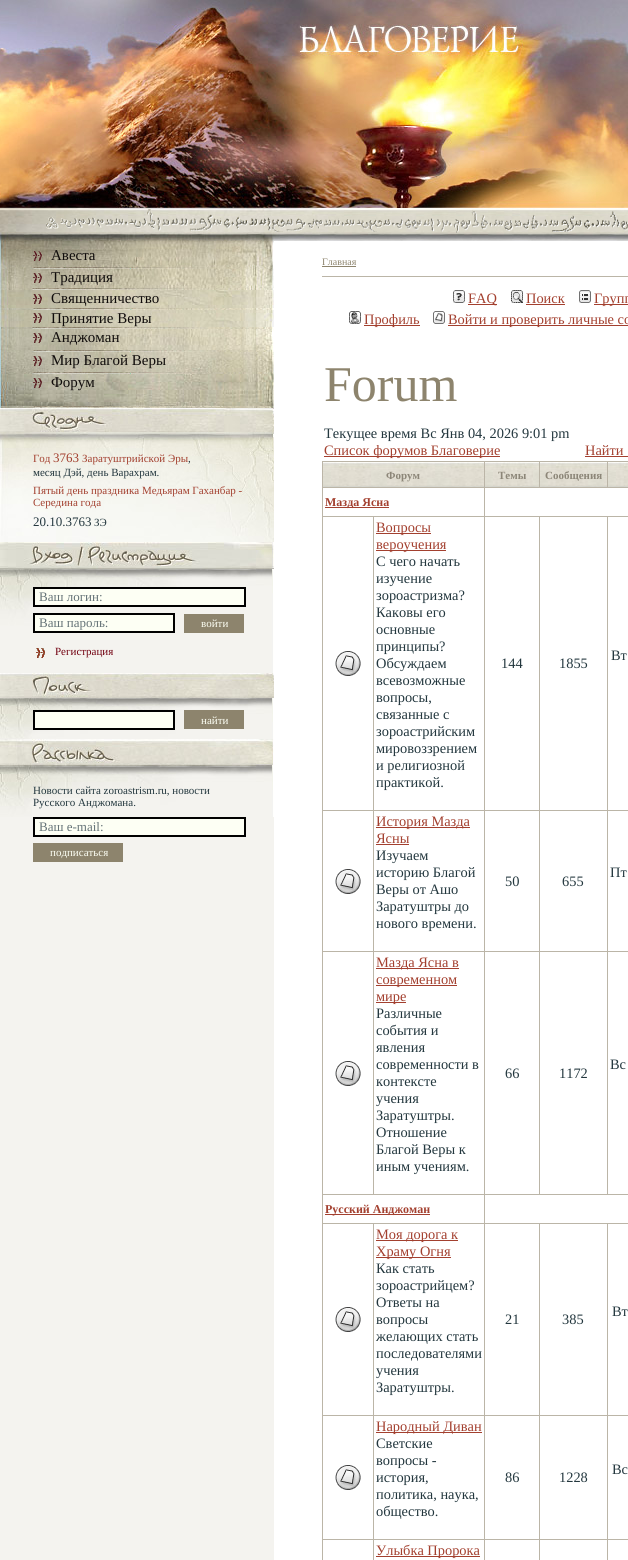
#include <cairo.h>
#include <math.h>
#include <stddef.h>

typedef struct { const char *family; double size; int italic, bold; unsigned color; } style_t;
static cairo_t *ctx;

static void ink(unsigned color) {
    cairo_set_source_rgb(ctx, (color >> 16) / 255.0, (color >> 8 & 255) / 255.0, (color & 255) / 255.0);
}

static void write(double x, double y, const char *s, const style_t *st) {
    cairo_select_font_face(ctx, st->family, st->italic ? CAIRO_FONT_SLANT_ITALIC : CAIRO_FONT_SLANT_NORMAL,
        st->bold ? CAIRO_FONT_WEIGHT_BOLD : CAIRO_FONT_WEIGHT_NORMAL);
    cairo_set_font_size(ctx, st->size);
    ink(st->color);
    cairo_move_to(ctx, x, y);
    cairo_show_text(ctx, s);
}

static void block(double x, double y, double w, double h, unsigned color) {
    ink(color);
    cairo_rectangle(ctx, x, y, w, h);
    cairo_fill(ctx);
}

static void paste(const char *path, double x, double y, double w, double h) {
    cairo_surface_t *image = cairo_image_surface_create_from_png(path);
    cairo_save(ctx);
    cairo_set_source_surface(ctx, image, x, y);
    cairo_rectangle(ctx, x, y, w, h);
    cairo_fill(ctx);
    cairo_restore(ctx);
    cairo_surface_destroy(image);
}

static const style_t s1 = {"Liberation Serif", 15, 0, 0, 0x100c0b};
static const style_t s2 = {"Liberation Serif", 11, 0, 0, 0xa3402f};
static const style_t s3 = {"Liberation Serif", 13, 0, 0, 0xa3402f};
static const style_t s4 = {"Liberation Serif", 11, 0, 0, 0x23373e};
static const style_t s5 = {"Liberation Serif", 13, 0, 0, 0x23373e};
static const style_t s6 = {"Liberation Serif", 13, 0, 0, 0x657377};
static const style_t s7 = {"Liberation Serif", 11, 0, 0, 0xfdfff4};
static const style_t s8 = {"Liberation Serif", 11, 0, 0, 0x710010};
static const style_t s9 = {"Liberation Serif", 10, 0, 0, 0x8d846d};
static const style_t s10 = {"Liberation Serif", 14.4, 0, 0, 0xa3402f};
static const style_t s11 = {"Liberation Serif", 50, 0, 0, 0x8d846d};
static const style_t s12 = {"Liberation Serif", 14.4, 0, 0, 0x23373e};
static const style_t s13 = {"Liberation Serif", 11, 0, 1, 0x8c8678};
static const style_t s14 = {"Liberation Serif", 12, 0, 1, 0xa3402f};

int main(void) {
    cairo_surface_t *surface = cairo_image_surface_create(CAIRO_FORMAT_RGB24, 628, 1560);
    ctx = cairo_create(surface);
    cairo_font_options_t *options = cairo_font_options_create();
    cairo_font_options_set_hint_metrics(options, CAIRO_HINT_METRICS_OFF);
    cairo_font_options_set_hint_style(options, CAIRO_HINT_STYLE_NONE);
    cairo_set_font_options(ctx, options);
    cairo_set_miter_limit(ctx, 4);
    ink(0xffffff);
    cairo_paint(ctx);
    paste("pic1.png", 0, 0, 20, 208);
    paste("pic2.png", 20, 0, 608, 208);
    paste("pic3.png", 0, 208, 628, 33);
    paste("pic4.png", 46, 209, 582, 24);
    block(0, 817, 274, 743, 0xf4f3ef);
    paste("pic5.png", 0, 290, 274, 37);
    paste("pic6.png", 0, 241, 274, 26);
    paste("pic7.png", 33, 251, 9, 10);
    write(51, 260, "Авеста", &s1);
    paste("pic8.png", 0, 267, 274, 2);
    paste("pic9.png", 0, 269, 274, 19);
    paste("pic10.png", 33, 273, 9, 10);
    write(51, 282, "Традиция", &s1);
    paste("pic11.png", 0, 288, 274, 2);
    paste("pic12.png", 33, 294, 9, 10);
    write(51, 303, "Священничество", &s1);
    paste("pic13.png", 0, 308, 274, 2);
    paste("pic14.png", 33, 313, 9, 10);
    write(51, 323, "Принятие Веры", &s1);
    paste("pic15.png", 0, 327, 274, 2);
    paste("pic16.png", 0, 329, 274, 21);
    paste("pic17.png", 33, 333, 9, 10);
    write(51, 342, "Анджоман", &s1);
    paste("pic18.png", 0, 350, 274, 2);
    paste("pic19.png", 0, 352, 274, 20);
    paste("pic20.png", 33, 356, 9, 10);
    write(51, 365, "Мир Благой Веры", &s1);
    paste("pic21.png", 0, 372, 274, 2);
    paste("pic22.png", 0, 374, 274, 20);
    paste("pic23.png", 33, 378, 9, 10);
    write(51, 387, "Форум", &s1);
    paste("pic24.png", 0, 394, 274, 12);
    paste("pic25.png", 0, 406, 274, 2);
    paste("pic26.png", 33, 406, 190, 2);
    paste("pic27.png", 0, 408, 274, 24);
    paste("pic28.png", 0, 432, 274, 110);
    write(33, 462, "Год", &s2);
    write(53, 462, "3763", &s3);
    write(82, 462, "Заратуштрийской Эры", &s2);
    write(188, 462, ",", &s4);
    write(33, 476, "месяц Дэй, день Варахрам.", &s4);
    write(33, 494, "Пятый день праздника Медьярам Гаханбар -", &s2);
    write(33, 506, "Середина года", &s2);
    write(33, 526, "20.10.3763", &s5);
    write(94, 526, "ЗЭ", &s4);
    paste("pic29.png", 0, 542, 274, 27);
    paste("pic30.png", 0, 569, 274, 104);
    ink(0xfdfff4);
    cairo_rectangle(ctx, 34, 588, 211, 18);
    cairo_fill_preserve(ctx);
    ink(0x000000);
    cairo_stroke(ctx);
    write(39, 601, "Ваш логин:", &s6);
    ink(0xfdfff4);
    cairo_rectangle(ctx, 34, 614, 140, 18);
    cairo_fill_preserve(ctx);
    ink(0x000000);
    cairo_stroke(ctx);
    write(39, 627, "Ваш пароль:", &s6);
    block(184, 614, 60, 19, 0x8d846d);
    write(201, 627, "войти", &s7);
    paste("pic31.png", 36, 648, 9, 10);
    write(55, 655, "Регистрация", &s8);
    paste("pic32.png", 0, 673, 274, 25);
    paste("pic33.png", 0, 698, 274, 41);
    ink(0xfdfff4);
    cairo_rectangle(ctx, 34, 711, 140, 18);
    cairo_fill_preserve(ctx);
    ink(0x000000);
    cairo_stroke(ctx);
    block(184, 710, 60, 19, 0x8d846d);
    write(201, 724, "найти", &s7);
    paste("pic34.png", 0, 739, 274, 27);
    paste("pic35.png", 0, 766, 274, 51);
    write(33, 794, "Новости сайта zoroastrism.ru, новости", &s4);
    write(33, 806, "Русского Анджомана.", &s4);
    ink(0xfdfff4);
    cairo_rectangle(ctx, 34, 818, 211, 18);
    cairo_fill_preserve(ctx);
    ink(0x000000);
    cairo_stroke(ctx);
    write(39, 831, "Ваш e-mail:", &s6);
    block(33, 843, 90, 19, 0x8d846d);
    write(50, 856, "подписаться", &s7);
    block(322, 276, 306, 1, 0xbbb5a7);
    write(322, 265, "Главная", &s9);
    block(322, 266, 34, 1, 0x8d846d);
    paste("pic36.png", 453, 290, 12, 13);
    block(468, 304, 29, 1, 0xa3402f);
    write(468, 303, "FAQ", &s10);
    paste("pic37.png", 511, 290, 12, 13);
    write(526, 303, "Поиск", &s10);
    block(526, 304, 39, 1, 0xa3402f);
    paste("pic38.png", 579, 290, 12, 13);
    block(594, 304, 34, 1, 0xa3402f);
    write(594, 303, "Групп", &s10);
    paste("pic39.png", 349, 311, 12, 13);
    block(364, 325, 56, 1, 0xa3402f);
    write(364, 324, "Профиль", &s10);
    paste("pic40.png", 433, 311, 12, 13);
    block(448, 325, 180, 1, 0xa3402f);
    write(448, 324, "Войти и проверить личные со", &s10);
    write(324, 401, "Forum", &s11);
    write(324, 438, "Текущее время Вс Янв 04, 2026 9:01 pm", &s12);
    block(324, 456, 176, 1, 0xa3402f);
    write(324, 455, "Список форумов Благоверие", &s10);
    write(585, 455, "Найти", &s10);
    block(585, 456, 43, 1, 0xa3402f);
    block(322, 461, 306, 1099, 0xbbb5a7);
    paste("pic41.png", 323, 462, 161, 25);
    write(386, 479, "Форум", &s13);
    paste("pic42.png", 485, 462, 54, 25);
    write(498, 479, "Темы", &s13);
    paste("pic43.png", 540, 462, 67, 25);
    write(545, 479, "Сообщения", &s13);
    paste("pic44.png", 608, 462, 20, 25);
    block(323, 488, 161, 28, 0xffffff);
    block(325, 507, 64, 1, 0xa3402f);
    write(325, 506, "Мазда Ясна", &s14);
    block(485, 488, 143, 28, 0xffffff);
    block(323, 517, 50, 293, 0xffffff);
    paste("pic45.png", 335, 651, 26, 25);
    block(374, 517, 110, 293, 0xffffff);
    block(376, 533, 55, 1, 0xa3402f);
    write(376, 532, "Вопросы", &s10);
    block(376, 550, 70, 1, 0xa3402f);
    write(376, 549, "вероучения", &s10);
    write(376, 566, "С чего начать", &s12);
    write(376, 583, "изучение", &s12);
    write(376, 600, "зороастризма?", &s12);
    write(376, 617, "Каковы его", &s12);
    write(376, 634, "основные", &s12);
    write(376, 651, "принципы?", &s12);
    write(376, 668, "Обсуждаем", &s12);
    write(376, 685, "всевозможные", &s12);
    write(376, 702, "вопросы,", &s12);
    write(376, 719, "связанные с", &s12);
    write(376, 736, "зороастрийским", &s12);
    write(376, 753, "мировоззрением", &s12);
    write(376, 770, "и религиозной", &s12);
    write(376, 787, "практикой.", &s12);
    block(608, 517, 20, 293, 0xffffff);
    write(611, 660, "Вт", &s12);
    block(485, 517, 54, 293, 0xffffff);
    write(501, 668, "144", &s12);
    block(540, 517, 67, 293, 0xffffff);
    write(559, 668, "1855", &s12);
    block(323, 811, 50, 140, 0xffffff);
    paste("pic45.png", 335, 869, 26, 25);
    block(374, 811, 110, 140, 0xffffff);
    block(376, 827, 94, 1, 0xa3402f);
    write(376, 826, "История Мазда", &s10);
    write(376, 843, "Ясны", &s10);
    block(376, 844, 33, 1, 0xa3402f);
    write(376, 860, "Изучаем", &s12);
    write(376, 877, "историю Благой", &s12);
    write(376, 894, "Веры от Ашо", &s12);
    write(376, 911, "Заратуштры до", &s12);
    write(376, 928, "нового времени.", &s12);
    block(608, 811, 20, 140, 0xffffff);
    write(610, 877, "Пт", &s12);
    block(485, 811, 54, 140, 0xffffff);
    write(505, 886, "50", &s12);
    block(540, 811, 67, 140, 0xffffff);
    write(562, 886, "655", &s12);
    block(323, 952, 50, 242, 0xffffff);
    paste("pic45.png", 335, 1061, 26, 25);
    block(374, 952, 110, 242, 0xffffff);
    block(376, 968, 83, 1, 0xa3402f);
    write(376, 967, "Мазда Ясна в", &s10);
    block(376, 985, 81, 1, 0xa3402f);
    write(376, 984, "современном", &s10);
    block(376, 1002, 30, 1, 0xa3402f);
    write(376, 1001, "мире", &s10);
    write(376, 1018, "Различные", &s12);
    write(376, 1035, "события и", &s12);
    write(376, 1052, "явления", &s12);
    write(376, 1069, "современности в", &s12);
    write(376, 1086, "контексте", &s12);
    write(376, 1103, "учения", &s12);
    write(376, 1120, "Заратуштры.", &s12);
    write(376, 1137, "Отношение", &s12);
    write(376, 1154, "Благой Веры к", &s12);
    write(376, 1171, "иным учениям.", &s12);
    block(608, 952, 20, 242, 0xffffff);
    write(610, 1069, "Вс", &s12);
    block(485, 952, 54, 242, 0xffffff);
    write(505, 1078, "66", &s12);
    block(540, 952, 67, 242, 0xffffff);
    write(559, 1078, "1172", &s12);
    block(323, 1195, 161, 28, 0xffffff);
    block(325, 1214, 105, 1, 0xa3402f);
    write(325, 1213, "Русский Анджоман", &s14);
    block(485, 1195, 143, 28, 0xffffff);
    block(323, 1224, 50, 191, 0xffffff);
    paste("pic45.png", 335, 1307, 26, 25);
    block(374, 1224, 110, 191, 0xffffff);
    block(376, 1240, 82, 1, 0xa3402f);
    write(376, 1239, "Моя дорога к", &s10);
    block(376, 1257, 75, 1, 0xa3402f);
    write(376, 1256, "Храму Огня", &s10);
    write(376, 1273, "Как стать", &s12);
    write(376, 1290, "зороастрийцем?", &s12);
    write(376, 1307, "Ответы на", &s12);
    write(376, 1324, "вопросы", &s12);
    write(376, 1341, "желающих стать", &s12);
    write(376, 1358, "последователями", &s12);
    write(376, 1375, "учения", &s12);
    write(376, 1392, "Заратуштры.", &s12);
    block(608, 1224, 20, 191, 0xffffff);
    write(612, 1316, "Вт", &s12);
    block(485, 1224, 54, 191, 0xffffff);
    write(505, 1324, "21", &s12);
    block(540, 1224, 67, 191, 0xffffff);
    write(562, 1324, "385", &s12);
    block(323, 1416, 50, 123, 0xffffff);
    paste("pic45.png", 335, 1465, 26, 25);
    block(374, 1416, 110, 123, 0xffffff);
    block(376, 1432, 106, 1, 0xa3402f);
    write(376, 1431, "Народный Диван", &s10);
    write(376, 1448, "Светские", &s12);
    write(376, 1465, "вопросы -", &s12);
    write(376, 1482, "история,", &s12);
    write(376, 1499, "политика, наука,", &s12);
    write(376, 1516, "общество.", &s12);
    block(608, 1416, 20, 123, 0xffffff);
    write(612, 1474, "Вс", &s12);
    block(485, 1416, 54, 123, 0xffffff);
    write(505, 1482, "86", &s12);
    block(540, 1416, 67, 123, 0xffffff);
    write(559, 1482, "1228", &s12);
    block(323, 1540, 50, 20, 0xffffff);
    block(374, 1540, 110, 20, 0xffffff);
    block(376, 1556, 104, 1, 0xa3402f);
    write(376, 1555, "Улыбка Пророка", &s10);
    block(485, 1540, 54, 20, 0xffffff);
    block(540, 1540, 67, 20, 0xffffff);
    block(608, 1540, 20, 20, 0xffffff);
    cairo_surface_write_to_png(surface, "screenshot.png");
    cairo_font_options_destroy(options);
    cairo_destroy(ctx);
    cairo_surface_destroy(surface);
    return 0;
}
